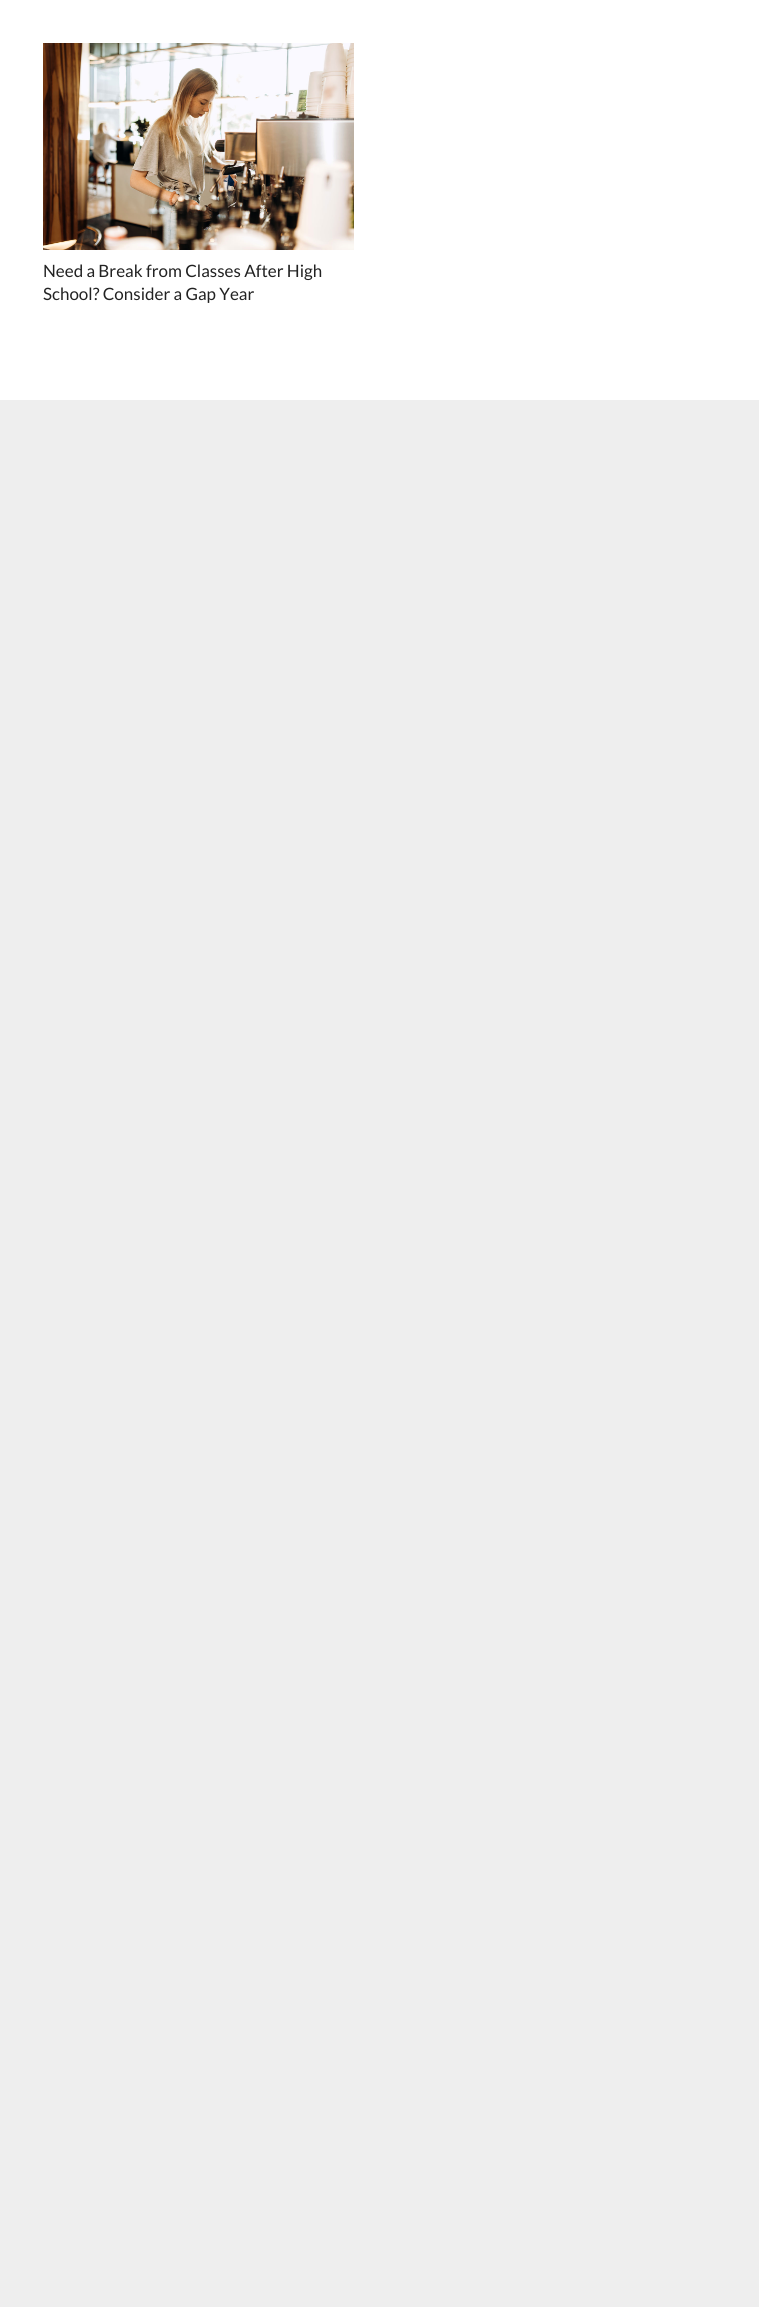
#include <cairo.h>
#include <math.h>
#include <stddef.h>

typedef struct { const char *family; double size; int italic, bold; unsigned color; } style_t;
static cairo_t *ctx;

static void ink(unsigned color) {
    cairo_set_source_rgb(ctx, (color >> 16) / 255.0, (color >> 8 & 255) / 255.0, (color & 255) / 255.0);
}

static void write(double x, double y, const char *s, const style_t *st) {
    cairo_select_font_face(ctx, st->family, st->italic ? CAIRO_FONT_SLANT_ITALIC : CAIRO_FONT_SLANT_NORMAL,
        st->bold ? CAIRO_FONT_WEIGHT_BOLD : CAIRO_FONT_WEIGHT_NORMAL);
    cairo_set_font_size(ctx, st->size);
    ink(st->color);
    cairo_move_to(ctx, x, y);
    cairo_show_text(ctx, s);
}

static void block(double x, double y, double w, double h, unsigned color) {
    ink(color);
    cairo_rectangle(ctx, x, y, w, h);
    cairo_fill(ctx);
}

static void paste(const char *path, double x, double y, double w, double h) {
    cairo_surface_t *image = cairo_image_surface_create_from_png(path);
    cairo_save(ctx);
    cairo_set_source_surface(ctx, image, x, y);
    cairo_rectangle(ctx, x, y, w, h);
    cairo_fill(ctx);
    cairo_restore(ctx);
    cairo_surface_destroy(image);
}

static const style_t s1 = {"Lato", 17, 0, 0, 0x222222};

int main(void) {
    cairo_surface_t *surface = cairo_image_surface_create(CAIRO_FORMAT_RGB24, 759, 2307);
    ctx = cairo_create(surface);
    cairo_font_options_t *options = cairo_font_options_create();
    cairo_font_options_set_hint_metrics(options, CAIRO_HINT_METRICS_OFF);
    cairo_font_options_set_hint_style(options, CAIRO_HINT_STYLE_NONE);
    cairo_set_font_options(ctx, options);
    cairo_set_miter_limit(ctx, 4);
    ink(0xeeeeee);
    cairo_paint(ctx);
    block(0, 0, 759, 400, 0xffffff);
    paste("pic1.png", 43, 43, 311, 207);
    write(43, 277, "Need a Break from Classes After High", &s1);
    write(43, 300, "School? Consider a Gap Year", &s1);
    cairo_surface_write_to_png(surface, "screenshot.png");
    cairo_font_options_destroy(options);
    cairo_destroy(ctx);
    cairo_surface_destroy(surface);
    return 0;
}
